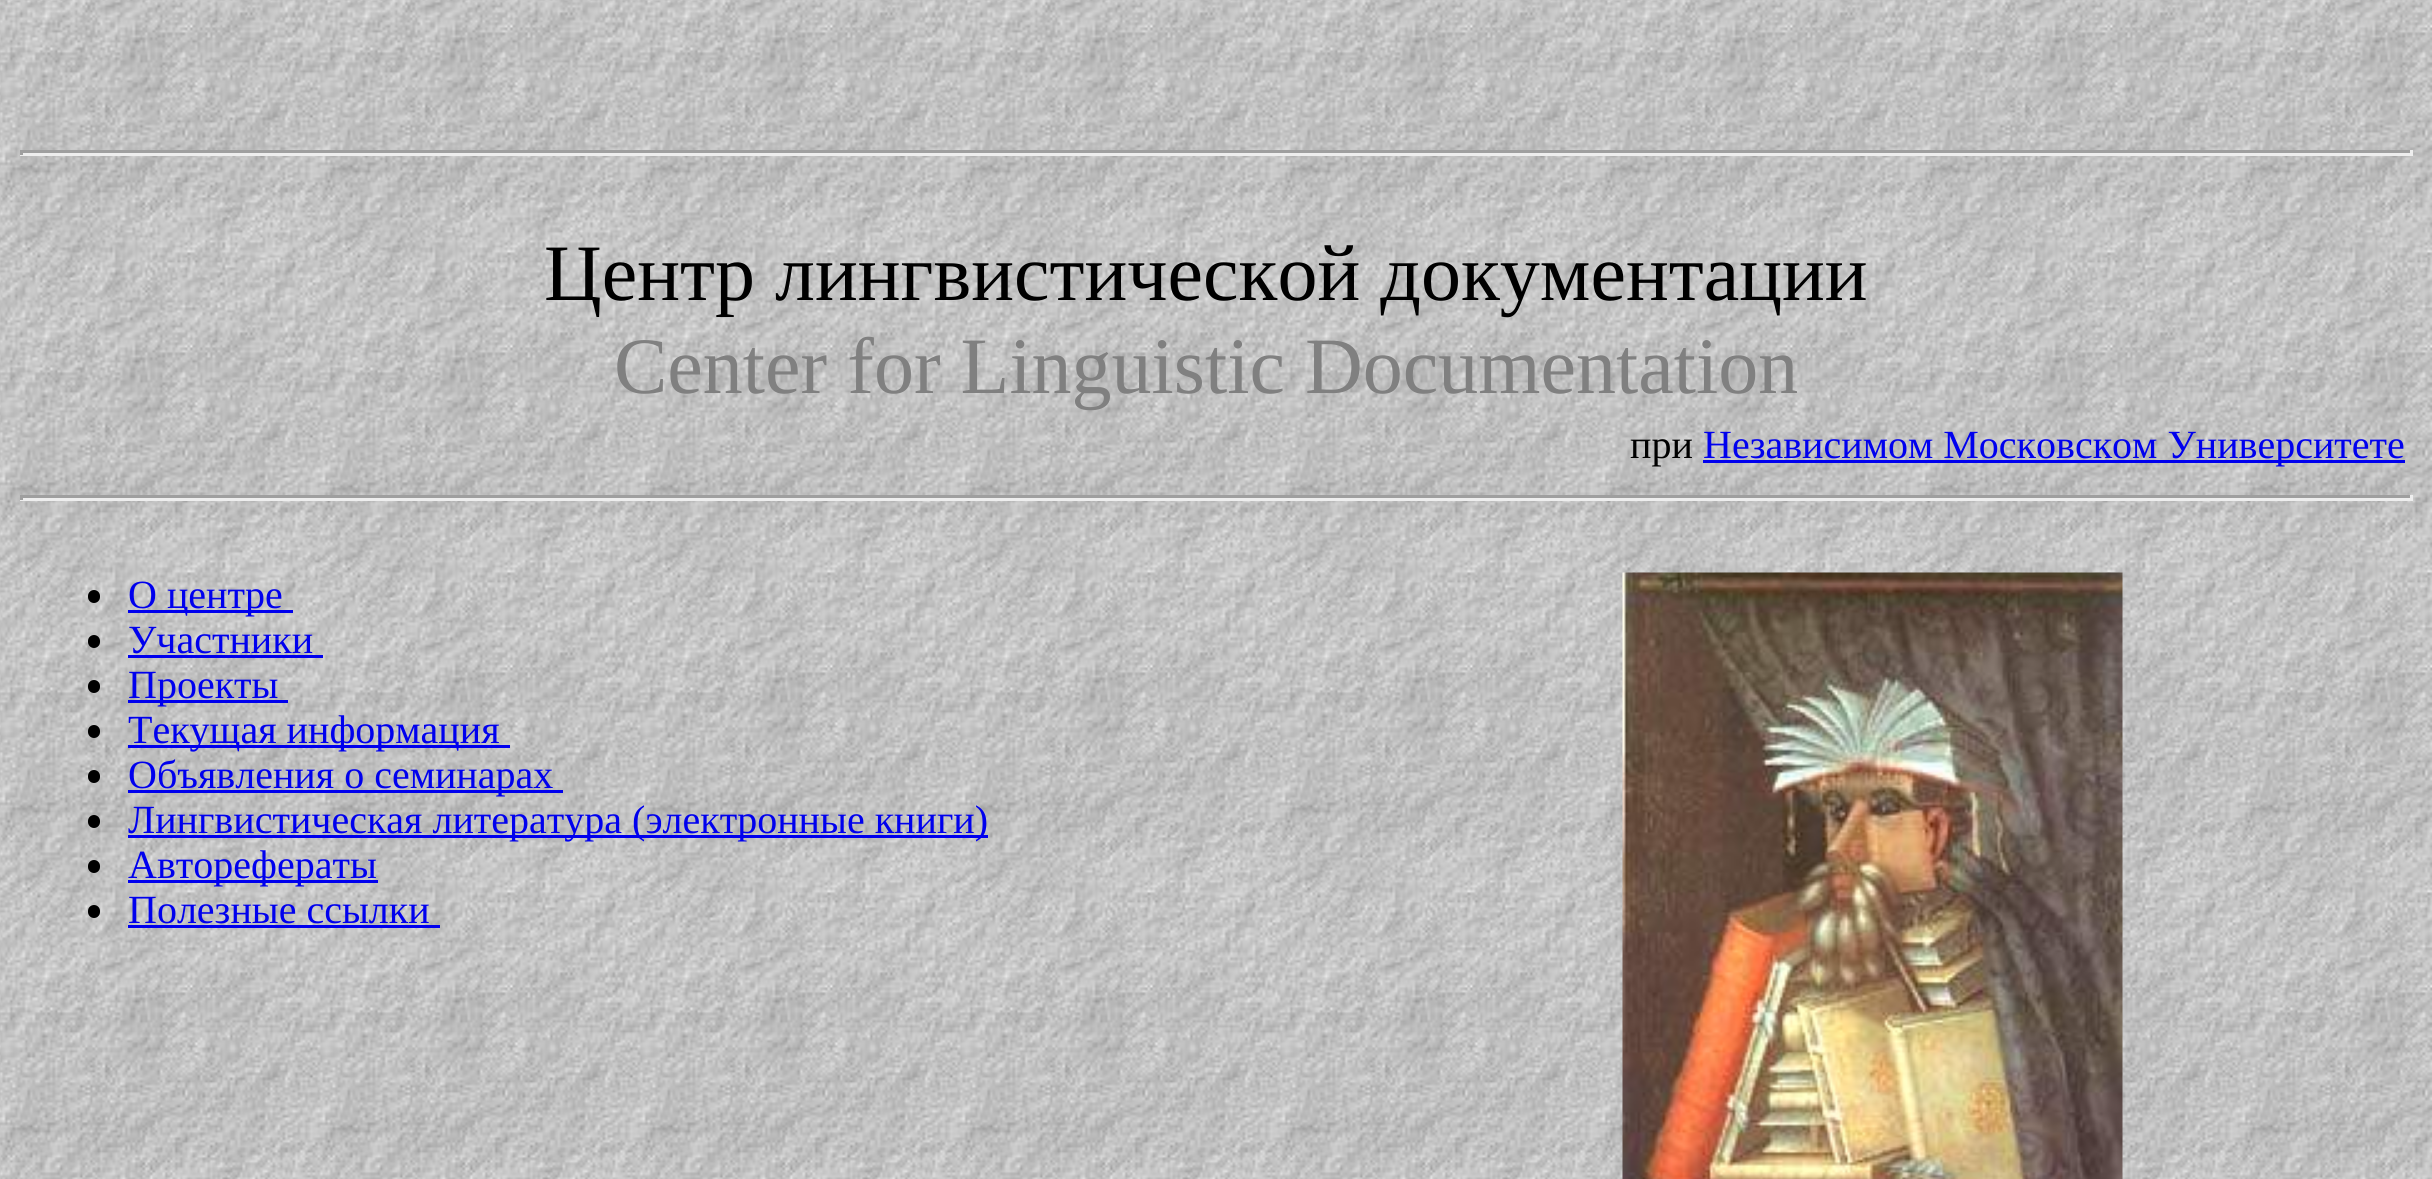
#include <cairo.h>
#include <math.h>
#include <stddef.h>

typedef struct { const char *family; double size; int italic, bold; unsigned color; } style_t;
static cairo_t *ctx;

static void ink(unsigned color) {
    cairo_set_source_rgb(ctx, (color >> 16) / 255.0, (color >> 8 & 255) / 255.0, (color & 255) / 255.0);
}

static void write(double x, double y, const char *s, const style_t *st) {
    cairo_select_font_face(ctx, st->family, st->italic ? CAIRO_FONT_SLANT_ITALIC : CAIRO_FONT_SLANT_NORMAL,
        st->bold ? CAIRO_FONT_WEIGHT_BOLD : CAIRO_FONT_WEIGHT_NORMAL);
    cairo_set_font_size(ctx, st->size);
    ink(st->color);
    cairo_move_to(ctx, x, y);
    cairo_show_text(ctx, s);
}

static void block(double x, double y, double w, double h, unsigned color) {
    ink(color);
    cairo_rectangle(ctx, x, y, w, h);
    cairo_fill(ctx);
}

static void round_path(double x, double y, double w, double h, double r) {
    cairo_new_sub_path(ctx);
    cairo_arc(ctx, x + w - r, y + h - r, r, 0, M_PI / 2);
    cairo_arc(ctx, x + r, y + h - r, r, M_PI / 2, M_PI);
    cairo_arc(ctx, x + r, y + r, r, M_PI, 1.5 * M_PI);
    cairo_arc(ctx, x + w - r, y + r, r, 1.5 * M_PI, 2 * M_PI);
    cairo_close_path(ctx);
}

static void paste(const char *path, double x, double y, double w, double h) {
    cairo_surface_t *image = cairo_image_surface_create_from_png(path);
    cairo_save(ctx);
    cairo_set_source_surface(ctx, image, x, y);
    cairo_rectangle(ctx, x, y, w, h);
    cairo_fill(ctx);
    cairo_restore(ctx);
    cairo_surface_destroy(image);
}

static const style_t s1 = {"Liberation Serif", 80, 0, 0, 0x000000};
static const style_t s2 = {"Liberation Serif", 80, 0, 0, 0x808080};
static const style_t s3 = {"Liberation Serif", 40, 0, 0, 0x000000};
static const style_t s4 = {"Liberation Serif", 40, 0, 0, 0x0000ee};

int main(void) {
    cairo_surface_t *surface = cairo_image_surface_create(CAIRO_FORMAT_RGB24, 2432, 1179);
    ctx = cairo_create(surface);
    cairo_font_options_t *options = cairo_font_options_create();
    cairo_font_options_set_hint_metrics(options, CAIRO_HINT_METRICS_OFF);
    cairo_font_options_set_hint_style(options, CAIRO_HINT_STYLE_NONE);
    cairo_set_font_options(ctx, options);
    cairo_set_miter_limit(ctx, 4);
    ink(0xffffff);
    cairo_paint(ctx);
    paste("pic1.png", 0, 0, 2432, 1179);
    block(20, 150, 2393, 3, 0x9f9f9f);
    block(2410, 150, 3, 5, 0xeeeeee);
    block(20, 153, 2393, 3, 0xeeeeee);
    block(20, 150, 3, 5, 0x9f9f9f);
    write(544, 300, "Центр лингвистической документации", &s1);
    write(614, 393, "Center for Linguistic Documentation", &s2);
    write(1630, 458, "при", &s3);
    block(1703, 460, 702, 3, 0x0000ee);
    write(1703, 458, "Независимом Московском Университете", &s4);
    block(20, 495, 2393, 3, 0x9f9f9f);
    block(2410, 495, 3, 5, 0xeeeeee);
    block(20, 498, 2393, 3, 0xeeeeee);
    block(20, 495, 3, 5, 0x9f9f9f);
    ink(0x000000);
    round_path(88, 590, 12, 13, 6);
    cairo_fill(ctx);
    block(128, 610, 165, 3, 0x0000ee);
    write(128, 608, "О центре", &s4);
    ink(0x000000);
    round_path(88, 635, 12, 13, 6);
    cairo_fill(ctx);
    write(128, 653, "Участники", &s4);
    block(128, 655, 195, 3, 0x0000ee);
    ink(0x000000);
    round_path(88, 680, 12, 13, 6);
    cairo_fill(ctx);
    block(128, 700, 160, 3, 0x0000ee);
    write(128, 698, "Проекты", &s4);
    ink(0x000000);
    round_path(88, 725, 12, 13, 6);
    cairo_fill(ctx);
    block(128, 745, 382, 3, 0x0000ee);
    write(128, 743, "Текущая информация", &s4);
    ink(0x000000);
    round_path(88, 770, 12, 13, 6);
    cairo_fill(ctx);
    block(128, 790, 435, 3, 0x0000ee);
    write(128, 788, "Объявления о семинарах", &s4);
    ink(0x000000);
    round_path(88, 815, 12, 13, 6);
    cairo_fill(ctx);
    block(128, 835, 860, 3, 0x0000ee);
    write(128, 833, "Лингвистическая литература (электронные книги)", &s4);
    ink(0x000000);
    round_path(88, 860, 12, 13, 6);
    cairo_fill(ctx);
    block(128, 880, 250, 3, 0x0000ee);
    write(128, 878, "Авторефераты", &s4);
    ink(0x000000);
    round_path(88, 905, 12, 13, 6);
    cairo_fill(ctx);
    write(128, 923, "Полезные ссылки", &s4);
    block(128, 925, 312, 3, 0x0000ee);
    paste("pic2.png", 1622, 572, 501, 607);
    cairo_surface_write_to_png(surface, "screenshot.png");
    cairo_font_options_destroy(options);
    cairo_destroy(ctx);
    cairo_surface_destroy(surface);
    return 0;
}
